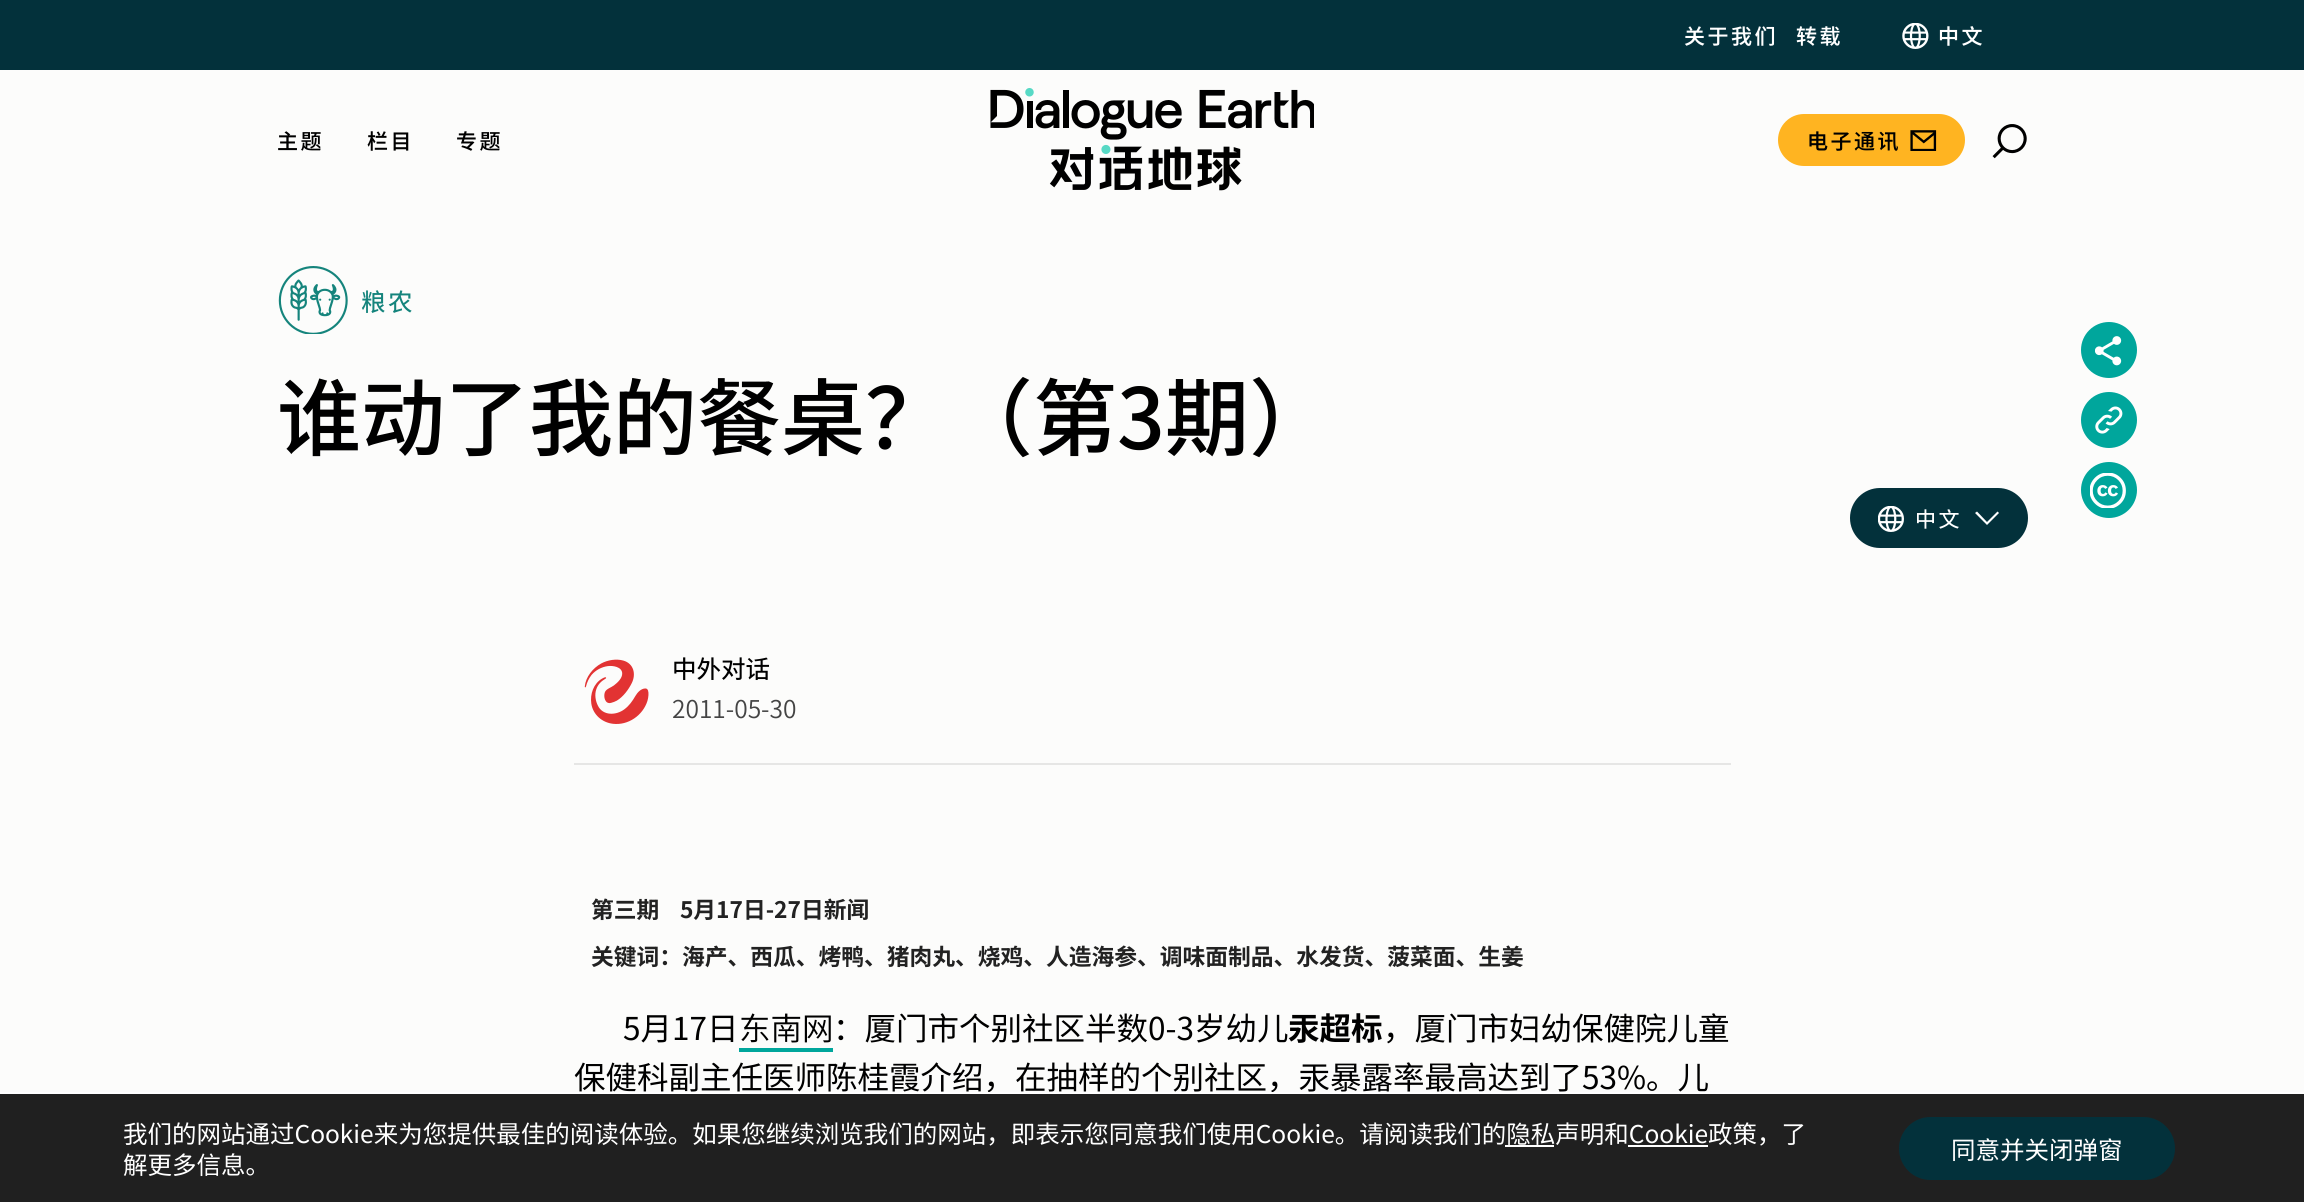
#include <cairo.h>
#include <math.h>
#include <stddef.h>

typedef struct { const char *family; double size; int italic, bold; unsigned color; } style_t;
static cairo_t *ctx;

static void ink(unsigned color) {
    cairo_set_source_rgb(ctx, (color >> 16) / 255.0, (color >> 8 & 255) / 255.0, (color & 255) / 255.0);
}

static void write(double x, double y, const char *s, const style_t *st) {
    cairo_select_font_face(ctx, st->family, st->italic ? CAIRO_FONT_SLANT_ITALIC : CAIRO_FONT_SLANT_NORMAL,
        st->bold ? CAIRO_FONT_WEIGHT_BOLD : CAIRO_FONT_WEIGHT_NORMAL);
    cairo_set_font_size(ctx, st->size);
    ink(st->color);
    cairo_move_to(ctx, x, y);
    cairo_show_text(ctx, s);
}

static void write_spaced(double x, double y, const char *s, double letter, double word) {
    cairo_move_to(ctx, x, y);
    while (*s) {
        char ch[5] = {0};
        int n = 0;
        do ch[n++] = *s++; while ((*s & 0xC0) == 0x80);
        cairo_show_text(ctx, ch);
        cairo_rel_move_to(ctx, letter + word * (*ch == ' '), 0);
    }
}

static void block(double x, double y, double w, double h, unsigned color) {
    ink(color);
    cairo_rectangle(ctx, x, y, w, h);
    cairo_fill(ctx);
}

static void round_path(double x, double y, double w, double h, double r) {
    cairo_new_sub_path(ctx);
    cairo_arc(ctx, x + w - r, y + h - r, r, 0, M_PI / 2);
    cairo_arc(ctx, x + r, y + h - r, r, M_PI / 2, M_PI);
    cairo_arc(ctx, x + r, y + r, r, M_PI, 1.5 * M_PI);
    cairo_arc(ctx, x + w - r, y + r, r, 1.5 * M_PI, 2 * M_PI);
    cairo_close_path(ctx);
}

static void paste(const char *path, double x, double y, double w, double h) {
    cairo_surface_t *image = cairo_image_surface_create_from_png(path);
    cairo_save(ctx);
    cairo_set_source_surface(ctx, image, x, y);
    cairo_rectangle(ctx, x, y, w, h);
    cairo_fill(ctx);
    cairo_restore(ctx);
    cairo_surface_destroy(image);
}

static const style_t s1 = {"Noto Sans SC Medium", 84, 0, 0, 0x000000};
static const style_t s2 = {"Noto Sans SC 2", 24.5, 0, 0, 0x000000};
static const style_t s3 = {"Noto Sans SC Light", 24.5, 0, 0, 0x444444};
static const style_t s4 = {"Noto Sans SC", 22.75, 0, 1, 0x222222};
static const style_t s5 = {"Noto Sans SC", 31.5, 0, 0, 0x000000};
static const style_t s6 = {"Noto Sans SC Light", 31.5, 0, 0, 0x000000};
static const style_t s7 = {"Noto Sans SC", 31.5, 0, 1, 0x000000};
static const style_t s8 = {"Noto Sans SC", 24.5, 0, 0, 0xffffff};

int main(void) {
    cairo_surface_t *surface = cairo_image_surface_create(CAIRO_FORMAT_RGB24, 2304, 1202);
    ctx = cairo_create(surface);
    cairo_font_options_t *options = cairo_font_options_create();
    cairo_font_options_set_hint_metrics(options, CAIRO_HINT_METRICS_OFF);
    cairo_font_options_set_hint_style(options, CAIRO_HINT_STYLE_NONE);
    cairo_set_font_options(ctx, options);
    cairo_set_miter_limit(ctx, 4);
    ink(0xfcfcfb);
    cairo_paint(ctx);
    block(0, 0, 2304, 70, 0x03313b);
    cairo_select_font_face(ctx, "Noto Sans SC 2 Medium", CAIRO_FONT_SLANT_NORMAL, CAIRO_FONT_WEIGHT_NORMAL);
    cairo_set_font_size(ctx, 21);
    ink(0xffffff);
    write_spaced(1684, 44, "关于我们", 2.5, 0);
    write_spaced(1796, 44, "转载", 2.5, 0);
    paste("pic1.png", 1902, 23, 27, 26);
    cairo_select_font_face(ctx, "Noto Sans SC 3 Medium", CAIRO_FONT_SLANT_NORMAL, CAIRO_FONT_WEIGHT_NORMAL);
    write_spaced(1938, 44, "中文", 2.5, 0);
    cairo_select_font_face(ctx, "Noto Sans SC 2 Medium", CAIRO_FONT_SLANT_NORMAL, CAIRO_FONT_WEIGHT_NORMAL);
    ink(0x000000);
    write_spaced(277, 149, "主题", 2.5, 0);
    write_spaced(367, 149, "栏目", 2.5, 0);
    write_spaced(456, 149, "专题", 2.5, 0);
    paste("pic2.png", 990, 88, 324, 103);
    ink(0xffb421);
    round_path(1778, 114, 187, 52, 26);
    cairo_fill(ctx);
    ink(0x000000);
    write_spaced(1807, 149, "电子通讯", 2.5, 0);
    paste("pic3.png", 1910, 130, 27, 21);
    paste("pic4.png", 1992, 124, 35, 35);
    paste("pic5.png", 278, 266, 70, 68);
    cairo_select_font_face(ctx, "Noto Sans SC 2", CAIRO_FONT_SLANT_NORMAL, CAIRO_FONT_WEIGHT_NORMAL);
    cairo_set_font_size(ctx, 24.5);
    ink(0x15847c);
    write_spaced(361, 311, "粮农", 2.5, 0);
    write(277, 449, "谁动了我的餐桌？（第3期）", &s1);
    ink(0x03313b);
    round_path(1851, 489, 176, 58, 29);
    cairo_fill_preserve(ctx);
    cairo_stroke(ctx);
    paste("pic6.png", 1878, 506, 26, 26);
    cairo_select_font_face(ctx, "Noto Sans SC 2", CAIRO_FONT_SLANT_NORMAL, CAIRO_FONT_WEIGHT_NORMAL);
    cairo_set_font_size(ctx, 21);
    ink(0xffffff);
    write_spaced(1915, 527, "中文", 2.5, 0);
    cairo_set_fill_rule(ctx, CAIRO_FILL_RULE_EVEN_ODD);
    cairo_new_path(ctx);
    cairo_move_to(ctx, 1977, 511.5);
    cairo_line_to(ctx, 1975, 513);
    cairo_line_to(ctx, 1987, 525);
    cairo_line_to(ctx, 1999, 513);
    cairo_line_to(ctx, 1997.5, 511.5);
    cairo_line_to(ctx, 1987, 522);
    cairo_close_path(ctx);
    cairo_fill(ctx);
    ink(0x00a69c);
    cairo_arc(ctx, 2109, 350, 28, 0, 2 * M_PI);
    cairo_fill(ctx);
    paste("pic7.png", 2095, 336, 27, 30);
    cairo_arc(ctx, 2109, 420, 28, 0, 2 * M_PI);
    cairo_fill(ctx);
    paste("pic8.png", 2095, 406, 28, 28);
    cairo_arc(ctx, 2109, 490, 28, 0, 2 * M_PI);
    cairo_fill(ctx);
    paste("pic9.png", 2090, 473, 36, 35);
    block(574, 763, 1157, 2, 0xe6e6e5);
    paste("pic10.png", 584, 659, 65, 65);
    write(672, 678, "中外对话", &s2);
    write(672, 718, "2011-05-30", &s3);
    write(591, 918, "第三期    5月17日-27日新闻", &s4);
    write(591, 965, "关键词：海产、西瓜、烤鸭、猪肉丸、烧鸡、人造海参、调味面制品、水发货、菠菜面、生姜", &s4);
    write(623, 1040, "5月17日", &s5);
    write(739, 1040, "东南网", &s6);
    block(739, 1048, 94, 4, 0x00a69c);
    write(833, 1040, "：厦门市个别社区半数0-3岁幼儿", &s5);
    write(1288, 1040, "汞超标", &s7);
    write(1383, 1040, "，厦门市妇幼保健院儿童", &s5);
    write(574, 1089, "保健科副主任医师陈桂霞介绍，在抽样的个别社区，汞暴露率最高达到了53%。儿", &s5);
    block(0, 1094, 2304, 108, 0x202020);
    block(0, 1092, 2304, 2, 0xffffff);
    write(123, 1143, "我们的网站通过Cookie来为您提供最佳的阅读体验。如果您继续浏览我们的网站，即表示您同意我们使用Cookie。请阅读我们的隐私声明和Cookie政策，了", &s8);
    block(1505, 1145, 49, 2, 0xffffff);
    block(1628, 1145, 80, 2, 0xffffff);
    write(123, 1174, "解更多信息。", &s8);
    ink(0x03313b);
    round_path(1899, 1117, 276, 63, 31.5);
    cairo_fill(ctx);
    write(1951, 1159, "同意并关闭弹窗", &s8);
    cairo_surface_write_to_png(surface, "screenshot.png");
    cairo_font_options_destroy(options);
    cairo_destroy(ctx);
    cairo_surface_destroy(surface);
    return 0;
}
